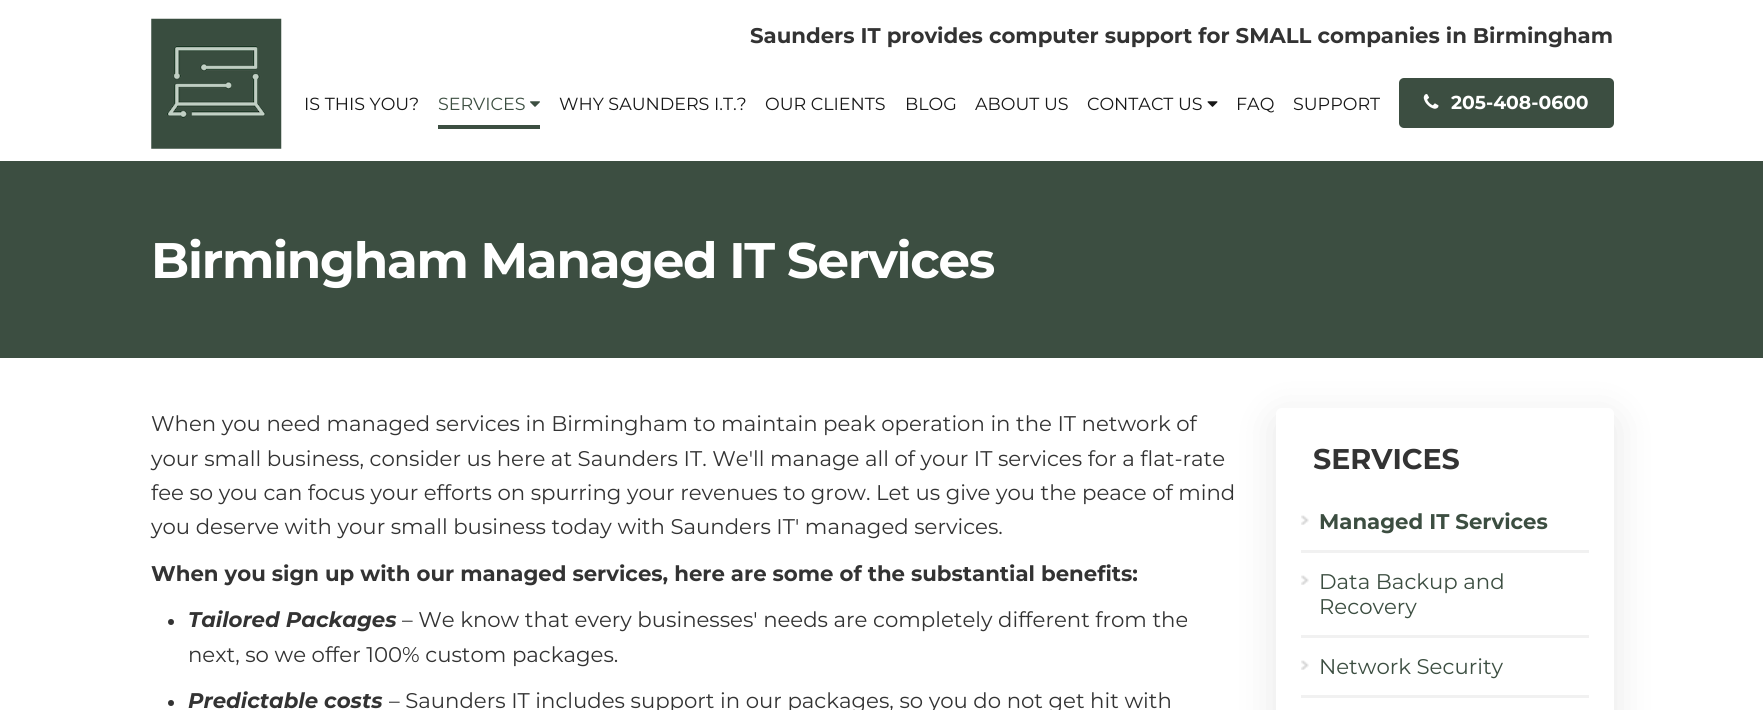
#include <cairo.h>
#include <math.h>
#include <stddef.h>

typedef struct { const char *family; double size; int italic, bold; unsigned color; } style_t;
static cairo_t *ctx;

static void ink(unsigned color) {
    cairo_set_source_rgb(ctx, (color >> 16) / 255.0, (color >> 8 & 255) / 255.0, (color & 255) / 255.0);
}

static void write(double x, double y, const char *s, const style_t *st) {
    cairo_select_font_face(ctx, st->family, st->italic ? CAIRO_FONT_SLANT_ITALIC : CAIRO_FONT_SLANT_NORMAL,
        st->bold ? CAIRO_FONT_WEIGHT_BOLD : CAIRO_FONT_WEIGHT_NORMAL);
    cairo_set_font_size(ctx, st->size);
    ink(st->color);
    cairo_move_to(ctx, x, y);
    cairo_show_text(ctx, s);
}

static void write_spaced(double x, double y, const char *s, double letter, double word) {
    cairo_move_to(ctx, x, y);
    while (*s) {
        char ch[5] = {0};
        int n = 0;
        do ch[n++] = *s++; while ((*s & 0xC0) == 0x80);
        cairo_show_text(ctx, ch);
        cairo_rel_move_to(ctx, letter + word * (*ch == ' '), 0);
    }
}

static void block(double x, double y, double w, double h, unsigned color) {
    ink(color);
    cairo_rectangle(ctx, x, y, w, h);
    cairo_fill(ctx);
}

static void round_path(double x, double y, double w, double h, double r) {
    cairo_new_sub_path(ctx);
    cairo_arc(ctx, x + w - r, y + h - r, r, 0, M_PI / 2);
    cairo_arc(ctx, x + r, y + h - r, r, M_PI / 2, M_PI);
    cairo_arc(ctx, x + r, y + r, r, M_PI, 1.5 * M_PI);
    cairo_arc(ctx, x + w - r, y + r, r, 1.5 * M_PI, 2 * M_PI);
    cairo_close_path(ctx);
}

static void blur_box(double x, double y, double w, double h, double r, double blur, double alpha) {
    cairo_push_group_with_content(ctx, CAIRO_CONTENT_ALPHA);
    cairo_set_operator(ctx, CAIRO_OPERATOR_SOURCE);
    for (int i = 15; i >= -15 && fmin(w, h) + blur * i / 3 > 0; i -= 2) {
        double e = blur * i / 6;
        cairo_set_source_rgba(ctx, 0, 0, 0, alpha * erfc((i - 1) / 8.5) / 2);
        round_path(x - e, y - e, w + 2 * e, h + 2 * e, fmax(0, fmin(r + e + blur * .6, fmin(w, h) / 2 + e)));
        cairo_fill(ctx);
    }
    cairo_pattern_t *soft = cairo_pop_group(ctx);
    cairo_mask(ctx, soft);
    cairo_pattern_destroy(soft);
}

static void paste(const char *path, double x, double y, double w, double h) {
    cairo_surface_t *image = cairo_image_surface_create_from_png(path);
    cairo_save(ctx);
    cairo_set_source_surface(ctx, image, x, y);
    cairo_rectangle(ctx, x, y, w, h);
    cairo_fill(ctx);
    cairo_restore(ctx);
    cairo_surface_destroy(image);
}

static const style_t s1 = {"Montserrat", 21.25, 0, 1, 0x333333};
static const style_t s2 = {"Montserrat", 17.5, 0, 0, 0x171717};
static const style_t s3 = {"Montserrat", 17.5, 0, 0, 0x3c4e41};
static const style_t s4 = {"Montserrat", 18.75, 0, 1, 0xffffff};
static const style_t s5 = {"Montserrat", 21.25, 0, 0, 0x333333};
static const style_t s6 = {"Montserrat", 21.25, 1, 1, 0x333333};
static const style_t s7 = {"Montserrat", 28.5, 0, 1, 0x333333};
static const style_t s8 = {"Montserrat", 21.25, 0, 1, 0x3c4e41};
static const style_t s9 = {"Montserrat", 21.25, 0, 0, 0x3c4e41};

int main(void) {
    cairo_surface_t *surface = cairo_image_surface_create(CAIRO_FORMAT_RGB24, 1763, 710);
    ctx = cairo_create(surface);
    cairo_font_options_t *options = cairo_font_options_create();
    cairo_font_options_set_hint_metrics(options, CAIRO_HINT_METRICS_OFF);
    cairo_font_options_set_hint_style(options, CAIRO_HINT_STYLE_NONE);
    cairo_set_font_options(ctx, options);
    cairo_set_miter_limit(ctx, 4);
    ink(0xffffff);
    cairo_paint(ctx);
    paste("pic1.png", 151, 18, 131, 131);
    write(750, 43, "Saunders IT provides computer support for SMALL companies in Birmingham", &s1);
    write(304, 110, "IS THIS YOU?", &s2);
    write(438, 110, "SERVICES", &s3);
    paste("pic2.png", 530, 101, 10, 6);
    block(438, 125, 102, 4, 0x3c4e41);
    write(559, 110, "WHY SAUNDERS I.T.?", &s2);
    write(765, 110, "OUR CLIENTS", &s2);
    write(905, 110, "BLOG", &s2);
    write(975, 110, "ABOUT US", &s2);
    write(1087, 110, "CONTACT US", &s2);
    paste("pic3.png", 1207, 101, 11, 6);
    write(1236, 110, "FAQ", &s2);
    write(1293, 110, "SUPPORT", &s2);
    ink(0x3c4e41);
    round_path(1399, 78, 215, 50, 5);
    cairo_fill(ctx);
    paste("pic4.png", 1423, 94, 16, 15);
    write(1451, 109, "205-408-0600", &s4);
    ink(0x000000);
    blur_box(1276, 418, 338, 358, 6, 20, 0.1);
    block(0, 161, 1763, 197, 0x3c4e41);
    cairo_set_font_size(ctx, 49.9);
    ink(0xffffff);
    write_spaced(151, 278, "Birmingham Managed IT Services", -1.25, 0);
    write(151, 431, "When you need managed services in Birmingham to maintain peak operation in the IT network of", &s5);
    write(151, 466, "your small business, consider us here at Saunders IT. We'll manage all of your IT services for a flat-rate", &s5);
    write(151, 500, "fee so you can focus your efforts on spurring your revenues to grow. Let us give you the peace of mind", &s5);
    write(151, 534, "you deserve with your small business today with Saunders IT' managed services.", &s5);
    write(151, 581, "When you sign up with our managed services, here are some of the substantial benefits:", &s1);
    cairo_new_path(ctx);
    cairo_arc(ctx, 171, 622, 3, 0, 2 * M_PI);
    cairo_fill(ctx);
    write(188, 627, "Tailored Packages", &s6);
    write(402, 627, "– We know that every businesses' needs are completely different from the", &s5);
    write(188, 662, "next, so we offer 100% custom packages.", &s5);
    cairo_new_path(ctx);
    cairo_arc(ctx, 171, 703, 3, 0, 2 * M_PI);
    cairo_fill(ctx);
    write(188, 708, "Predictable costs", &s6);
    write(389, 708, "– Saunders IT includes support in our packages, so you do not get hit with", &s5);
    ink(0xffffff);
    round_path(1276, 408, 338, 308, 6);
    cairo_fill(ctx);
    write(1313, 469, "SERVICES", &s7);
    block(1301, 550, 288, 3, 0xf1f1f1);
    paste("pic5.png", 1301, 515, 8, 10);
    write(1319, 529, "Managed IT Services", &s8);
    block(1301, 635, 288, 3, 0xf1f1f1);
    paste("pic5.png", 1301, 575, 8, 10);
    write(1319, 589, "Data Backup and", &s9);
    write(1319, 614, "Recovery", &s9);
    block(1301, 695, 288, 3, 0xf1f1f1);
    paste("pic5.png", 1301, 660, 8, 10);
    write(1319, 674, "Network Security", &s9);
    cairo_surface_write_to_png(surface, "screenshot.png");
    cairo_font_options_destroy(options);
    cairo_destroy(ctx);
    cairo_surface_destroy(surface);
    return 0;
}
